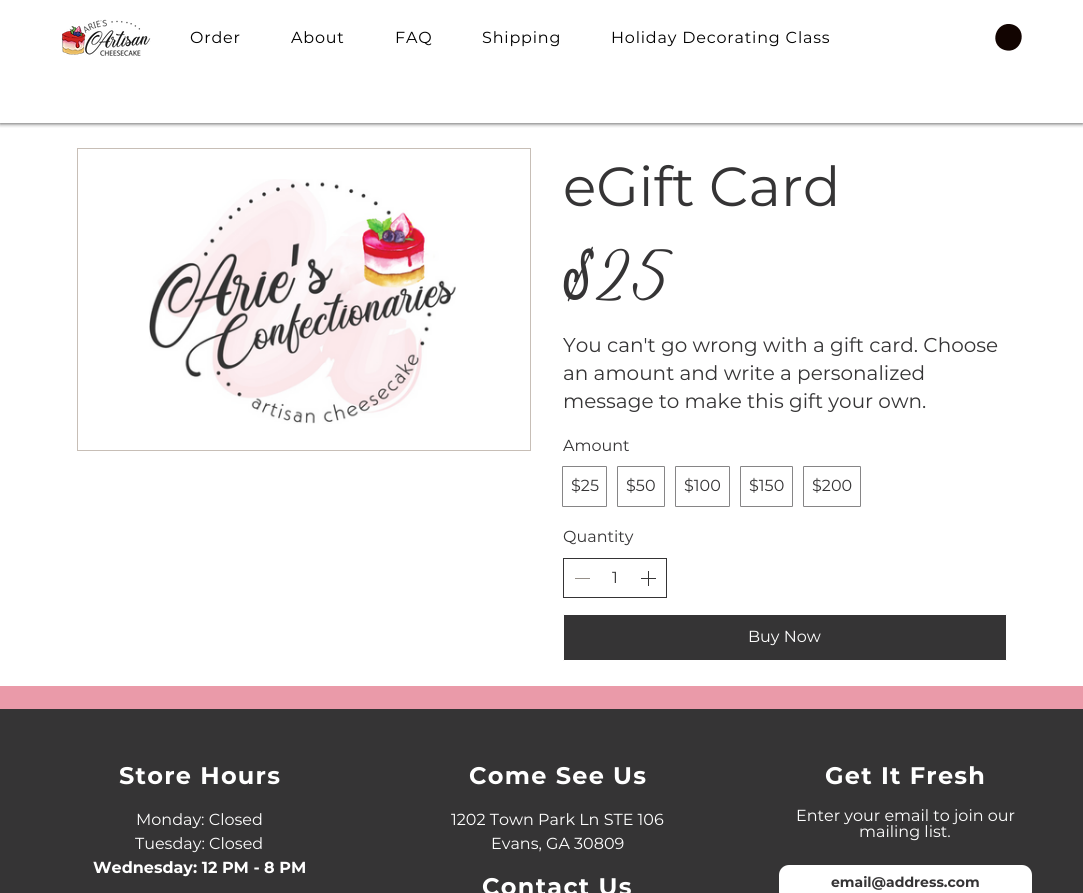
#include <cairo.h>
#include <math.h>
#include <stddef.h>

typedef struct { const char *family; double size; int italic, bold; unsigned color; } style_t;
static cairo_t *ctx;

static void ink(unsigned color) {
    cairo_set_source_rgb(ctx, (color >> 16) / 255.0, (color >> 8 & 255) / 255.0, (color & 255) / 255.0);
}

static void write(double x, double y, const char *s, const style_t *st) {
    cairo_select_font_face(ctx, st->family, st->italic ? CAIRO_FONT_SLANT_ITALIC : CAIRO_FONT_SLANT_NORMAL,
        st->bold ? CAIRO_FONT_WEIGHT_BOLD : CAIRO_FONT_WEIGHT_NORMAL);
    cairo_set_font_size(ctx, st->size);
    ink(st->color);
    cairo_move_to(ctx, x, y);
    cairo_show_text(ctx, s);
}

static void write_spaced(double x, double y, const char *s, double letter, double word) {
    cairo_move_to(ctx, x, y);
    while (*s) {
        char ch[5] = {0};
        int n = 0;
        do ch[n++] = *s++; while ((*s & 0xC0) == 0x80);
        cairo_show_text(ctx, ch);
        cairo_rel_move_to(ctx, letter + word * (*ch == ' '), 0);
    }
}

static void block(double x, double y, double w, double h, unsigned color) {
    ink(color);
    cairo_rectangle(ctx, x, y, w, h);
    cairo_fill(ctx);
}

static void round_path(double x, double y, double w, double h, double r) {
    cairo_new_sub_path(ctx);
    cairo_arc(ctx, x + w - r, y + h - r, r, 0, M_PI / 2);
    cairo_arc(ctx, x + r, y + h - r, r, M_PI / 2, M_PI);
    cairo_arc(ctx, x + r, y + r, r, M_PI, 1.5 * M_PI);
    cairo_arc(ctx, x + w - r, y + r, r, 1.5 * M_PI, 2 * M_PI);
    cairo_close_path(ctx);
}

static void blur_box(double x, double y, double w, double h, double r, double blur, double alpha) {
    cairo_push_group_with_content(ctx, CAIRO_CONTENT_ALPHA);
    cairo_set_operator(ctx, CAIRO_OPERATOR_SOURCE);
    for (int i = 15; i >= -15 && fmin(w, h) + blur * i / 3 > 0; i -= 2) {
        double e = blur * i / 6;
        cairo_set_source_rgba(ctx, 0, 0, 0, alpha * erfc((i - 1) / 8.5) / 2);
        round_path(x - e, y - e, w + 2 * e, h + 2 * e, fmax(0, fmin(r + e + blur * .6, fmin(w, h) / 2 + e)));
        cairo_fill(ctx);
    }
    cairo_pattern_t *soft = cairo_pop_group(ctx);
    cairo_mask(ctx, soft);
    cairo_pattern_destroy(soft);
}

static void paste(const char *path, double x, double y, double w, double h) {
    cairo_surface_t *image = cairo_image_surface_create_from_png(path);
    cairo_save(ctx);
    cairo_set_source_surface(ctx, image, x, y);
    cairo_rectangle(ctx, x, y, w, h);
    cairo_fill(ctx);
    cairo_restore(ctx);
    cairo_surface_destroy(image);
}

static const style_t s1 = {"Montserrat", 55, 0, 0, 0x353435};
static const style_t s2 = {"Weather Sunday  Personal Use", 50, 0, 0, 0x353435};
static const style_t s3 = {"Montserrat", 20, 0, 0, 0x353435};
static const style_t s4 = {"Montserrat", 16, 0, 0, 0x353435};
static const style_t s5 = {"Montserrat", 16, 0, 0, 0xffffff};
static const style_t s6 = {"Montserrat", 16, 0, 1, 0xffffff};
static const style_t s7 = {"Montserrat", 14, 0, 1, 0x353435};

int main(void) {
    cairo_surface_t *surface = cairo_image_surface_create(CAIRO_FORMAT_RGB24, 1083, 893);
    ctx = cairo_create(surface);
    cairo_font_options_t *options = cairo_font_options_create();
    cairo_font_options_set_hint_metrics(options, CAIRO_HINT_METRICS_OFF);
    cairo_font_options_set_hint_style(options, CAIRO_HINT_STYLE_NONE);
    cairo_set_font_options(ctx, options);
    cairo_set_miter_limit(ctx, 4);
    ink(0xffffff);
    cairo_paint(ctx);
    cairo_save(ctx);
    cairo_rectangle(ctx, 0, 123, 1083, 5);
    cairo_clip(ctx);
    ink(0x000000);
    blur_box(0, 1, 1083, 123, 0, 2, 0.6);
    cairo_restore(ctx);
    paste("pic1.png", 61, 19, 90, 37);
    cairo_select_font_face(ctx, "Montserrat", CAIRO_FONT_SLANT_NORMAL, CAIRO_FONT_WEIGHT_NORMAL);
    cairo_set_font_size(ctx, 16);
    ink(0x000000);
    write_spaced(190, 43, "Order", 0.8, 0);
    write_spaced(291, 43, "About", 0.8, 0);
    write_spaced(395, 43, "FAQ", 0.8, 0);
    write_spaced(482, 43, "Shipping", 0.8, 0);
    write_spaced(611, 43, "Holiday Decorating Class", 0.8, 0);
    ink(0x120401);
    cairo_new_path(ctx);
    cairo_move_to(ctx, 1012.5, 24.5);
    cairo_curve_to(ctx, 1029, 29.5, 1021.5, 55, 1004.5, 50);
    cairo_curve_to(ctx, 988, 45, 995.5, 20, 1012.5, 24.5);
    cairo_close_path(ctx);
    cairo_fill(ctx);
    cairo_rectangle(ctx, 77.5, 148.5, 453, 302);
    ink(0xc7beb6);
    cairo_set_line_width(ctx, 1);
    cairo_stroke(ctx);
    paste("pic2.png", 149, 179, 307, 245);
    write(563, 206, "eGift Card", &s1);
    write(563, 288, "$25", &s2);
    write(563, 352, "You can't go wrong with a gift card. Choose", &s3);
    write(563, 380, "an amount and write a personalized", &s3);
    write(563, 408, "message to make this gift your own.", &s3);
    write(563, 451, "Amount", &s4);
    round_path(562.5, 466.5, 44, 40, 0.5);
    ink(0x868586);
    cairo_stroke(ctx);
    write(571, 491, "$25", &s4);
    round_path(617.5, 466.5, 47, 40, 0.5);
    ink(0x868586);
    cairo_stroke(ctx);
    write(626, 491, "$50", &s4);
    round_path(675.5, 466.5, 54, 40, 0.5);
    ink(0x868586);
    cairo_stroke(ctx);
    write(684, 491, "$100", &s4);
    round_path(740.5, 466.5, 52, 40, 0.5);
    ink(0x868586);
    cairo_stroke(ctx);
    write(749, 491, "$150", &s4);
    round_path(803.5, 466.5, 57, 40, 0.5);
    ink(0x868586);
    cairo_stroke(ctx);
    write(812, 491, "$200", &s4);
    write(563, 542, "Quantity", &s4);
    cairo_rectangle(ctx, 563.5, 558.5, 103, 39);
    cairo_stroke(ctx);
    block(575, 578, 15, 1, 0x958f89);
    write(612, 583, "1", &s4);
    paste("pic3.png", 641, 571, 15, 15);
    round_path(563.5, 614.5, 443, 46, 0.5);
    cairo_fill_preserve(ctx);
    ink(0xffffff);
    cairo_stroke(ctx);
    write(748, 642, "Buy Now", &s5);
    block(0, 709, 1083, 184, 0x353435);
    block(0, 686, 1083, 23, 0xea9aa9);
    cairo_select_font_face(ctx, "Montserrat", CAIRO_FONT_SLANT_NORMAL, CAIRO_FONT_WEIGHT_BOLD);
    cairo_set_font_size(ctx, 24);
    ink(0xffffff);
    write_spaced(119, 784, "Store Hours", 1.25, 0);
    write(136, 825, "Monday: Closed", &s5);
    write(135, 849, "Tuesday: Closed", &s5);
    write(93, 873, "Wednesday: 12 PM - 8 PM", &s6);
    cairo_set_font_size(ctx, 24);
    write_spaced(469, 784, "Come See Us", 1.25, 0);
    write(451, 825, "1202 Town Park Ln STE 106", &s5);
    write(491, 849, "Evans, GA 30809", &s5);
    cairo_select_font_face(ctx, "Montserrat", CAIRO_FONT_SLANT_NORMAL, CAIRO_FONT_WEIGHT_BOLD);
    cairo_set_font_size(ctx, 24);
    write_spaced(482, 895, "Contact Us", 1.25, 0);
    write_spaced(825, 784, "Get It Fresh", 1.25, 0);
    write(796, 821, "Enter your email to join our", &s5);
    write(859, 837, "mailing list.", &s5);
    round_path(779, 865, 253, 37, 10);
    cairo_fill(ctx);
    write(831, 887, "email@address.com", &s7);
    cairo_surface_write_to_png(surface, "screenshot.png");
    cairo_font_options_destroy(options);
    cairo_destroy(ctx);
    cairo_surface_destroy(surface);
    return 0;
}
